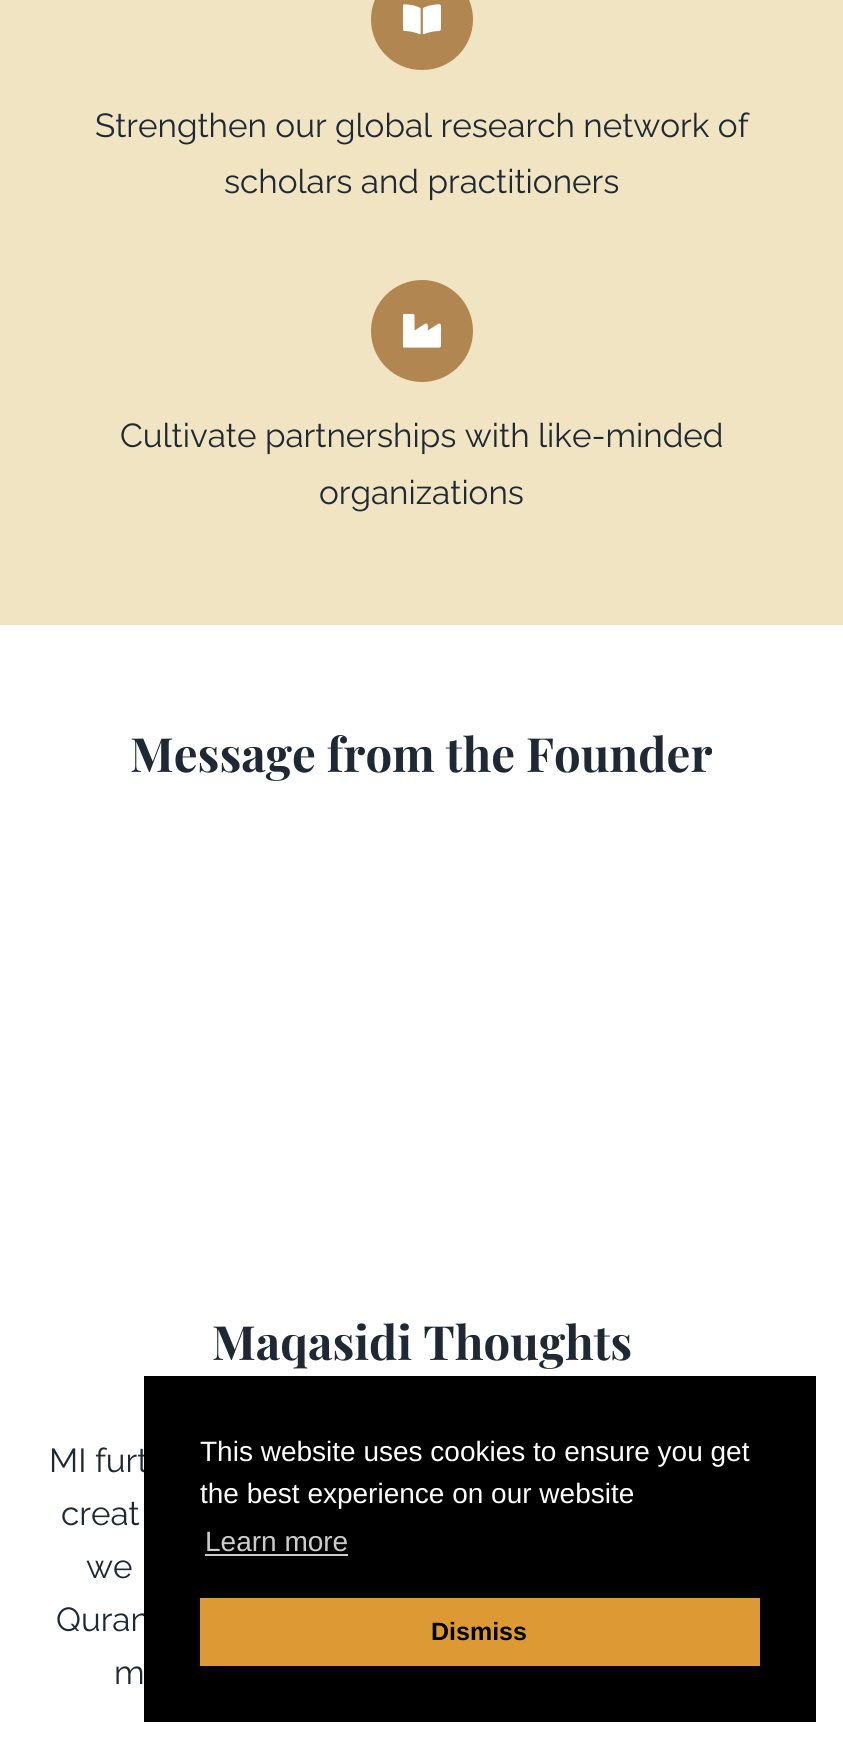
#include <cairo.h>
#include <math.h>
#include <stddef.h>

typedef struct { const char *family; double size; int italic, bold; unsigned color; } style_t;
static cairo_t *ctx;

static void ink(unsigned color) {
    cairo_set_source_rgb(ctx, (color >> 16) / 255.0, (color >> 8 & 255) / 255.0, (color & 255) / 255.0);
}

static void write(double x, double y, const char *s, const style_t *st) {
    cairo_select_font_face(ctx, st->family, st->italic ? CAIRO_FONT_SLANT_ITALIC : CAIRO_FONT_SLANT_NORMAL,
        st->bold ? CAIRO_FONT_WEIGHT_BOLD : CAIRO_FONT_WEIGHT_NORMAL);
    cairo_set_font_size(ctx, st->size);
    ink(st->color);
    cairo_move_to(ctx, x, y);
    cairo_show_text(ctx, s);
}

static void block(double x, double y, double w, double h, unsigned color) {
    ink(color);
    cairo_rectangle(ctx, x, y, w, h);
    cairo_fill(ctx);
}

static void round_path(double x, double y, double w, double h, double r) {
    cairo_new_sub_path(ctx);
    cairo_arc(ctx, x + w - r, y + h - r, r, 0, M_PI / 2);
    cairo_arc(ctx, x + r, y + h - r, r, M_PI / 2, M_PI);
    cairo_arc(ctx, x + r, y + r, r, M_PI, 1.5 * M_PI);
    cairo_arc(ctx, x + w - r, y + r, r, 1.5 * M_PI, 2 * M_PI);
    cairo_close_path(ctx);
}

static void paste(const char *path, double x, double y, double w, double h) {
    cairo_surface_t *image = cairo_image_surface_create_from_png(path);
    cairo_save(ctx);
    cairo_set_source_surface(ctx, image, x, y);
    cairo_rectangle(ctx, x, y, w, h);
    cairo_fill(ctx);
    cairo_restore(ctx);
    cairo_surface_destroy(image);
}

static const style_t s1 = {"Raleway", 33.25, 0, 0, 0x1f2933};
static const style_t s2 = {"Playfair Display", 47.25, 0, 1, 0x1f2933};
static const style_t s3 = {"Liberation Sans", 28, 0, 0, 0xffffff};
static const style_t s4 = {"Liberation Sans", 28, 0, 0, 0xcccccc};
static const style_t s5 = {"Liberation Sans", 25, 0, 1, 0x000000};

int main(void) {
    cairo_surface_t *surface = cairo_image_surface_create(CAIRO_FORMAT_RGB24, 843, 1750);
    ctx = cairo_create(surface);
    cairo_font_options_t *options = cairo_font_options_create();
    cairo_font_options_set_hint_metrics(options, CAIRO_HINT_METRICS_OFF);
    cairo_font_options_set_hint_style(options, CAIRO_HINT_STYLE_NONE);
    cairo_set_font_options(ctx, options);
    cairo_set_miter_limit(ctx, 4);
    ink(0xffffff);
    cairo_paint(ctx);
    block(0, 0, 843, 625, 0xf0e4c2);
    ink(0xb28650);
    round_path(371, -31, 102, 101, 50.5);
    cairo_fill(ctx);
    paste("pic1.png", 403, 4, 38, 31);
    write(95, 137, "Strengthen our global research network of", &s1);
    write(224, 193, "scholars and practitioners", &s1);
    ink(0xb28650);
    cairo_new_path(ctx);
    cairo_arc(ctx, 422, 331, 51, 0, 2 * M_PI);
    cairo_fill(ctx);
    paste("pic2.png", 403, 313, 38, 35);
    write(120, 447, "Cultivate partnerships with like-minded", &s1);
    write(319, 504, "organizations", &s1);
    write(130, 772, "Message from the Founder", &s2);
    write(212, 1360, "Maqasidi Thoughts", &s2);
    write(49, 1472, "MI furt", &s1);
    write(61, 1525, "creat", &s1);
    write(86, 1578, "we", &s1);
    write(56, 1631, "Quran", &s1);
    write(114, 1684, "m", &s1);
    block(144, 1376, 672, 346, 0x000000);
    write(200, 1461, "This website uses cookies to ensure you get", &s3);
    write(200, 1503, "the best experience on our website", &s3);
    write(205, 1551, "Learn more", &s4);
    block(205, 1554, 143, 2, 0xcccccc);
    block(200, 1598, 560, 68, 0xdd9933);
    write(431, 1640, "Dismiss", &s5);
    cairo_surface_write_to_png(surface, "screenshot.png");
    cairo_font_options_destroy(options);
    cairo_destroy(ctx);
    cairo_surface_destroy(surface);
    return 0;
}
